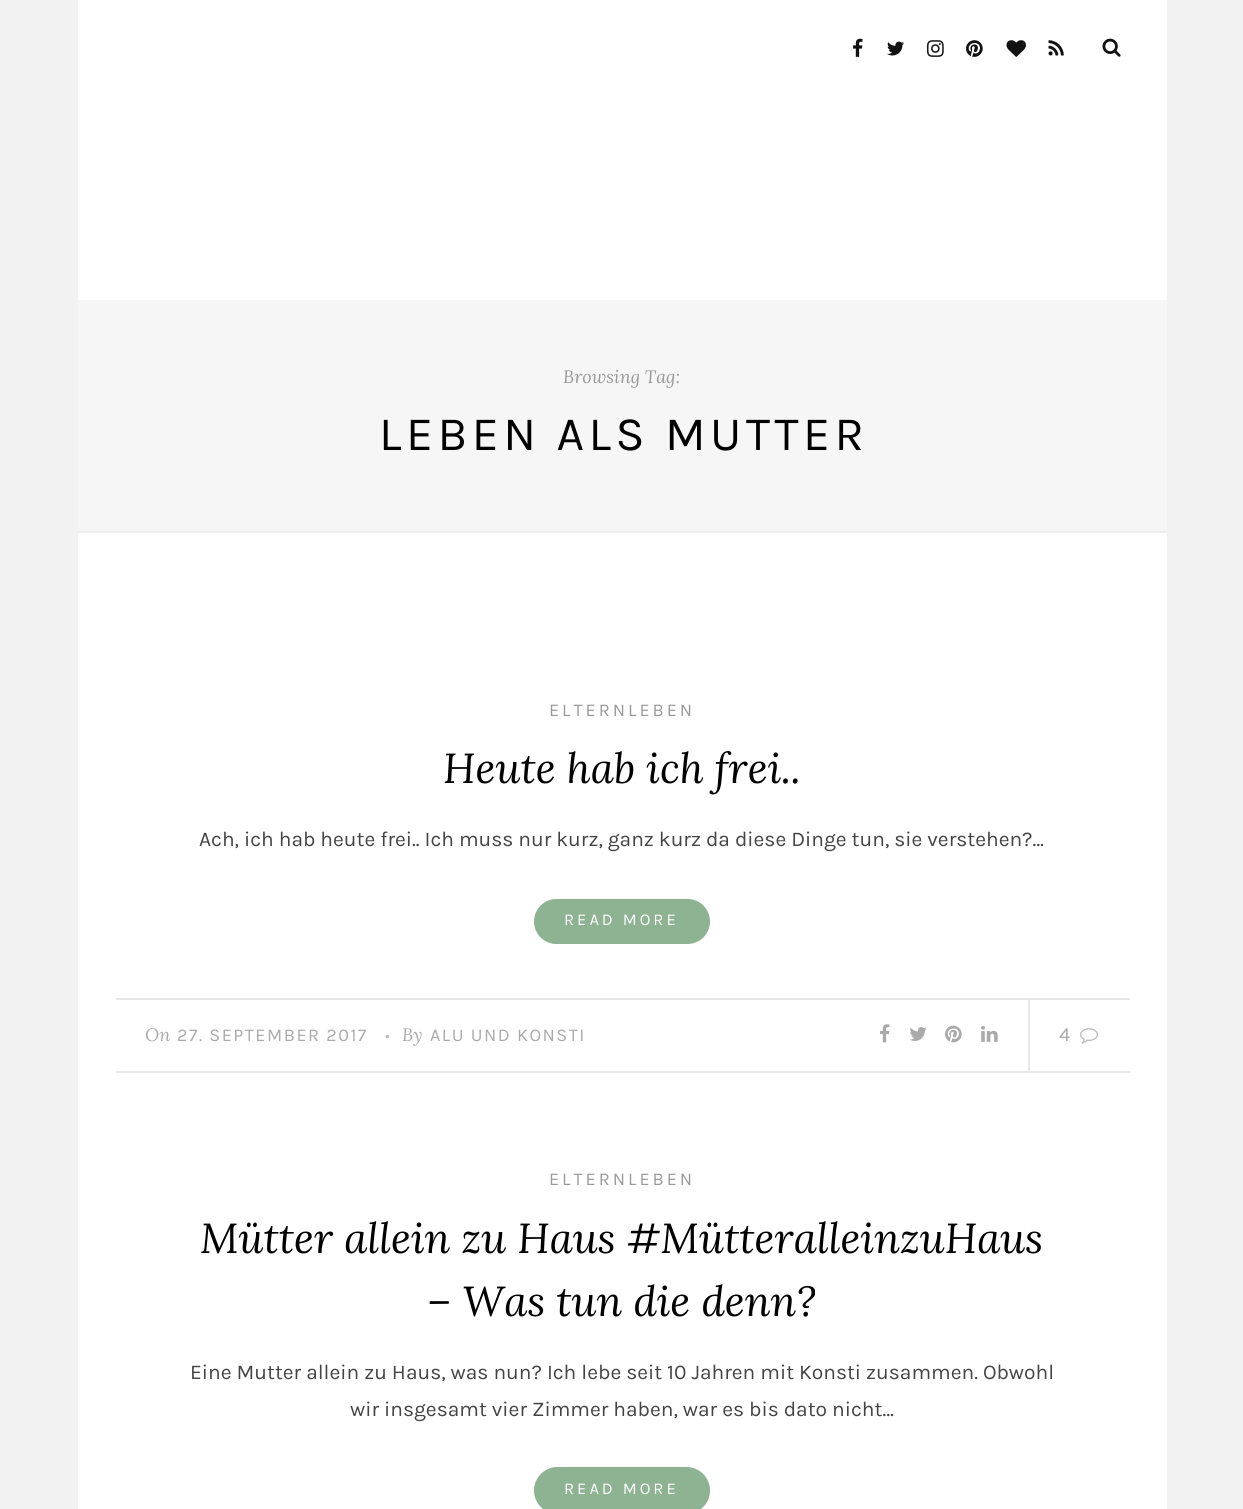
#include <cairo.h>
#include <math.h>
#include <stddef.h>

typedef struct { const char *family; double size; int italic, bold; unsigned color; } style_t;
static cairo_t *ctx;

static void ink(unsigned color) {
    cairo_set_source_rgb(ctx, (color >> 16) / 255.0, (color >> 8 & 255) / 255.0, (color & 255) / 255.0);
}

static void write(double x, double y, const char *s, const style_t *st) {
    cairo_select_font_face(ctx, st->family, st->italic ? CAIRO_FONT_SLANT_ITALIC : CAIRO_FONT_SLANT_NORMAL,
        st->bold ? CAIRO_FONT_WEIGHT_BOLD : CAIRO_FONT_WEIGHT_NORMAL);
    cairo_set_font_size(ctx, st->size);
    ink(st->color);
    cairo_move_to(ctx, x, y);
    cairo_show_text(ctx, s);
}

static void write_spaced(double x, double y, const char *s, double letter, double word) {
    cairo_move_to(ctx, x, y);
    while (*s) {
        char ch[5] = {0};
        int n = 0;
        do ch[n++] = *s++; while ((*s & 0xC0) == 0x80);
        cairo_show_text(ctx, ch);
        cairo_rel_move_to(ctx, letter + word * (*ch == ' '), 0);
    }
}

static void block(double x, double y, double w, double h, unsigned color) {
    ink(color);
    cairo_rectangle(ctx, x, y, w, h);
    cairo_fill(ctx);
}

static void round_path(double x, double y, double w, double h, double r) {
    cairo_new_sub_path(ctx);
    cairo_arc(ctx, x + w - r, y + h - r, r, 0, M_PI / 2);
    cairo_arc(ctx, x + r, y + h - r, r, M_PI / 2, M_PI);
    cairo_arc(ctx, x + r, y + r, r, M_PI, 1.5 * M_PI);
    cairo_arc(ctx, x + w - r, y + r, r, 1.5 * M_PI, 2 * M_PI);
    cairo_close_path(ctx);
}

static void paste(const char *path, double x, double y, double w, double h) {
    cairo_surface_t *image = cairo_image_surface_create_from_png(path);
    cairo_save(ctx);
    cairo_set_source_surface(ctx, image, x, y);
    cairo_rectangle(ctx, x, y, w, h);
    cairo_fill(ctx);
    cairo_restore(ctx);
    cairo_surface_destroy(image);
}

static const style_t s1 = {"Lora", 18, 1, 0, 0x999999};
static const style_t s2 = {"Lora", 42, 1, 0, 0x000000};
static const style_t s3 = {"Karla", 21, 0, 0, 0x444444};
static const style_t s4 = {"Lora", 18, 1, 0, 0xaaaaaa};
static const style_t s5 = {"Karla", 20, 0, 0, 0xaaaaaa};

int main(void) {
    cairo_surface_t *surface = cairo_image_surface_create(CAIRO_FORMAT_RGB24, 1243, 1509);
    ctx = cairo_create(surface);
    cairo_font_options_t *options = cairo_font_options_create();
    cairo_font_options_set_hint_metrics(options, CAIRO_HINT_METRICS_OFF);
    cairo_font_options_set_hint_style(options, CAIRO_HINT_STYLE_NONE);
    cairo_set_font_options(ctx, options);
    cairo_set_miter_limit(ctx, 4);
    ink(0xf2f2f2);
    cairo_paint(ctx);
    block(78, 0, 1089, 1509, 0xffffff);
    paste("pic1.png", 853, 38, 10, 19);
    paste("pic2.png", 887, 41, 17, 15);
    paste("pic3.png", 927, 40, 17, 17);
    paste("pic4.png", 966, 40, 17, 17);
    paste("pic5.png", 1006, 40, 20, 17);
    paste("pic6.png", 1048, 40, 16, 16);
    paste("pic7.png", 1102, 38, 19, 19);
    block(78, 300, 1089, 231, 0xf6f6f6);
    block(78, 531, 1089, 2, 0xeeeeee);
    write(563, 383, "Browsing Tag:", &s1);
    cairo_select_font_face(ctx, "Karla", CAIRO_FONT_SLANT_NORMAL, CAIRO_FONT_WEIGHT_NORMAL);
    cairo_set_font_size(ctx, 48);
    ink(0x000000);
    write_spaced(379, 450, "LEBEN ALS MUTTER", 4.5, 0);
    cairo_set_font_size(ctx, 18);
    ink(0x999999);
    write_spaced(549, 716, "ELTERNLEBEN", 3, 0);
    write(443, 783, "Heute hab ich frei..", &s2);
    write(199, 846, "Ach, ich hab heute frei.. Ich muss nur kurz, ganz kurz da diese Dinge tun, sie verstehen?…", &s3);
    ink(0x8db392);
    round_path(534, 899, 176, 45, 22.5);
    cairo_fill(ctx);
    cairo_set_font_size(ctx, 16.5);
    ink(0xffffff);
    write_spaced(564, 925, "READ MORE", 3, 0);
    block(116, 998, 1014, 2, 0xe8e8e8);
    block(116, 1071, 1014, 2, 0xe8e8e8);
    write(145, 1041, "On", &s4);
    cairo_select_font_face(ctx, "Karla", CAIRO_FONT_SLANT_NORMAL, CAIRO_FONT_WEIGHT_NORMAL);
    write_spaced(177, 1041, "27. SEPTEMBER 2017", 1.5, 0);
    cairo_set_font_size(ctx, 16.5);
    ink(0xbbbbbb);
    write_spaced(385, 1041, "•", 1.5, 0);
    write(402, 1041, "By", &s4);
    cairo_select_font_face(ctx, "Karla", CAIRO_FONT_SLANT_NORMAL, CAIRO_FONT_WEIGHT_NORMAL);
    write_spaced(430, 1041, "ALU UND KONSTI", 1.5, 0);
    paste("pic8.png", 880, 1024, 10, 19);
    paste("pic9.png", 909, 1027, 18, 14);
    paste("pic10.png", 945, 1025, 17, 18);
    paste("pic11.png", 981, 1026, 17, 16);
    block(1028, 999, 2, 72, 0xe8e8e8);
    write(1059, 1041, "4", &s5);
    paste("pic12.png", 1080, 1028, 18, 16);
    cairo_set_font_size(ctx, 18);
    ink(0x999999);
    write_spaced(549, 1185, "ELTERNLEBEN", 3, 0);
    write(200, 1253, "Mütter allein zu Haus #MütteralleinzuHaus", &s2);
    write(427, 1316, "– Was tun die denn?", &s2);
    write(190, 1379, "Eine Mutter allein zu Haus, was nun? Ich lebe seit 10 Jahren mit Konsti zusammen. Obwohl", &s3);
    write(350, 1416, "wir insgesamt vier Zimmer haben, war es bis dato nicht…", &s3);
    ink(0x8db392);
    round_path(534, 1467, 176, 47, 23.5);
    cairo_fill(ctx);
    cairo_set_font_size(ctx, 16.5);
    ink(0xffffff);
    write_spaced(564, 1494, "READ MORE", 3, 0);
    cairo_surface_write_to_png(surface, "screenshot.png");
    cairo_font_options_destroy(options);
    cairo_destroy(ctx);
    cairo_surface_destroy(surface);
    return 0;
}
